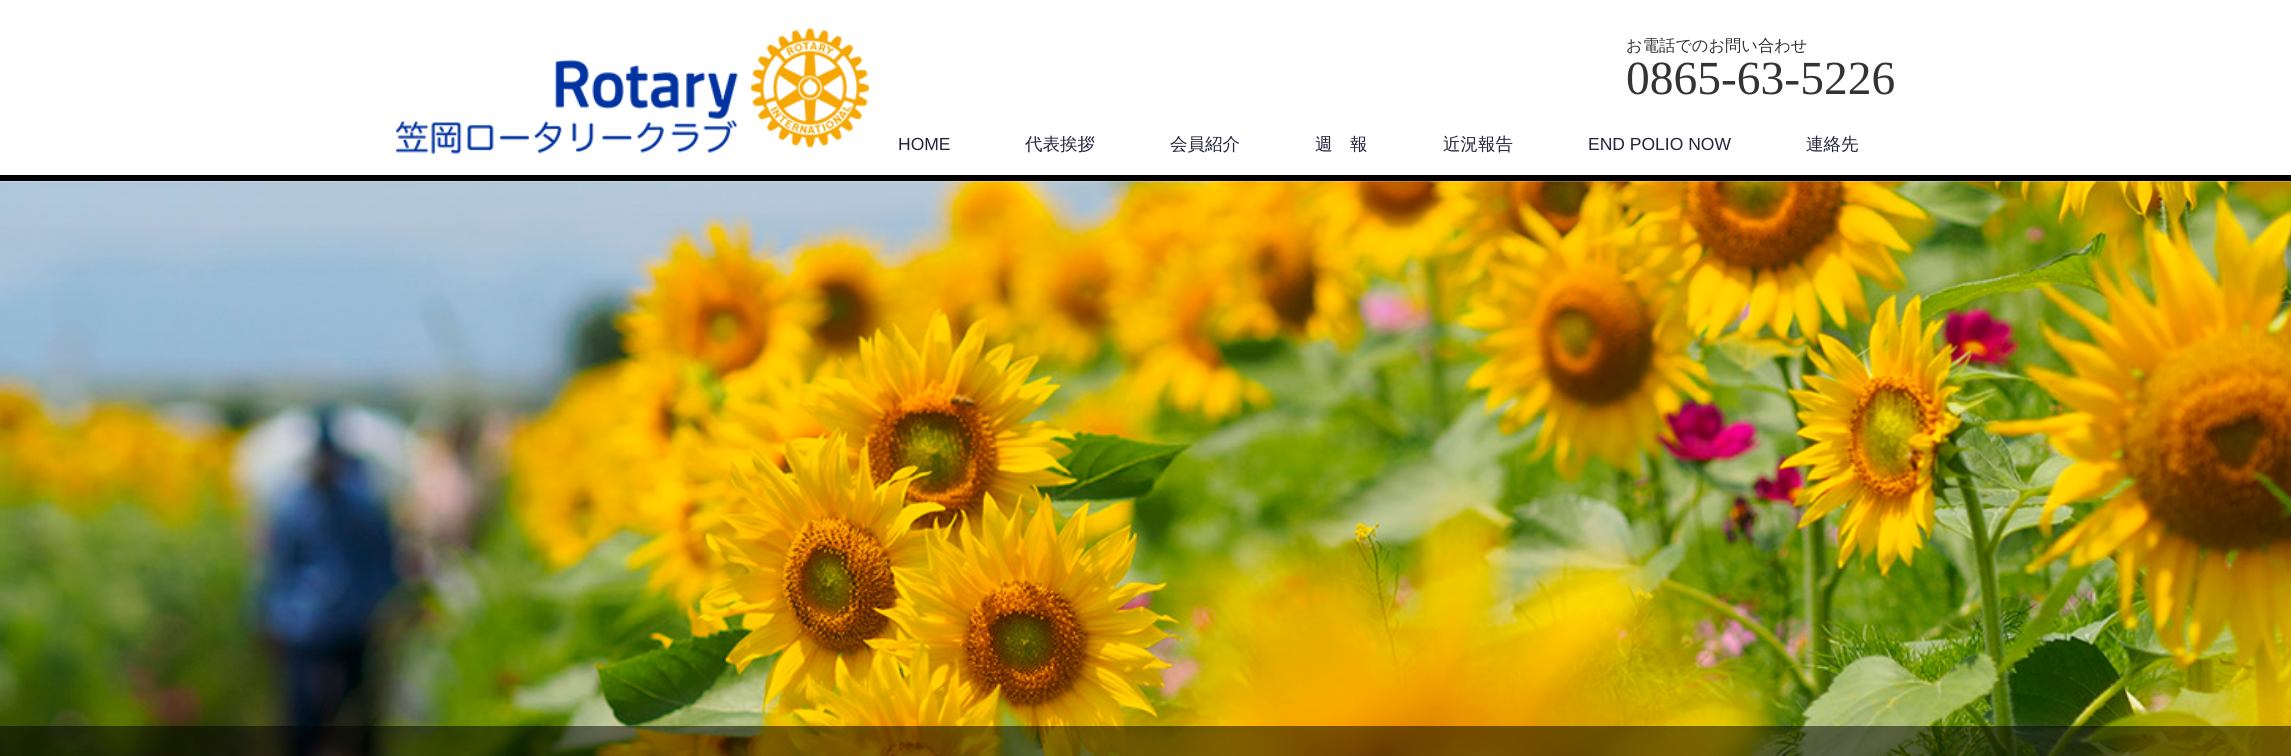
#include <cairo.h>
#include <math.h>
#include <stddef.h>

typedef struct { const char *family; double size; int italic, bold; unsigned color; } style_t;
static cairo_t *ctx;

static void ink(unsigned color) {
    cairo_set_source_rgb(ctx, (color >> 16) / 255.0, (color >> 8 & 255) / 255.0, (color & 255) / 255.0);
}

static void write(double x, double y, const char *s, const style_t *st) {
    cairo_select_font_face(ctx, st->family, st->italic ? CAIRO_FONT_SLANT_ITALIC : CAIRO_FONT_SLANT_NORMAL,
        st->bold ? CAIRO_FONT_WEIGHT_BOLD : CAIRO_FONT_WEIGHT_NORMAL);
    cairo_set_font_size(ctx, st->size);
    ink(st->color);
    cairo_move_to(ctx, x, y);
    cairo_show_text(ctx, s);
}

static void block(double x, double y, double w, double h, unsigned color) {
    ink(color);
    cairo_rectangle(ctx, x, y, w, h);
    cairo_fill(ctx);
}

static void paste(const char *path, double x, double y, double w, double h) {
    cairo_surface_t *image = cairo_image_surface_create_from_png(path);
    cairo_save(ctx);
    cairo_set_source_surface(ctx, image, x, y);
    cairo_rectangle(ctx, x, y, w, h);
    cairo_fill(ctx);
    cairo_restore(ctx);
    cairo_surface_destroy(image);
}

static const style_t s1 = {"WenQuanYi Zen Hei Medium", 16.25, 0, 0, 0x333333};
static const style_t s2 = {"Liberation Serif", 47.5, 0, 0, 0x333333};
static const style_t s3 = {"Liberation Sans", 17.5, 0, 0, 0x222439};
static const style_t s4 = {"WenQuanYi Zen Hei Medium", 17.5, 0, 0, 0x222439};

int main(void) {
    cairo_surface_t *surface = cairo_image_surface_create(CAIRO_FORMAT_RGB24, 2291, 756);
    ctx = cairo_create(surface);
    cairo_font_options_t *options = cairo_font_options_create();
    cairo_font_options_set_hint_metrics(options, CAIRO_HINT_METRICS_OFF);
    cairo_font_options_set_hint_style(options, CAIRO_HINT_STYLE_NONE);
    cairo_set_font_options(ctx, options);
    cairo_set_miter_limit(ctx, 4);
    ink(0xffffff);
    cairo_paint(ctx);
    block(0, 175, 2291, 6, 0x000000);
    paste("pic1.png", 396, 28, 473, 126);
    write(1626, 51, "お電話でのお問い合わせ", &s1);
    write(1626, 94, "0865-63-5226", &s2);
    write(898, 150, "HOME", &s3);
    write(1025, 150, "代表挨拶", &s4);
    write(1170, 150, "会員紹介", &s4);
    write(1315, 150, "週　報", &s4);
    write(1443, 150, "近況報告", &s4);
    write(1588, 150, "END POLIO NOW", &s3);
    write(1806, 150, "連絡先", &s4);
    paste("pic2.png", 0, 181, 2291, 575);
    cairo_set_source_rgba(ctx, 0, 0, 0, 0.5);
    cairo_rectangle(ctx, 0, 726, 2291, 30);
    cairo_fill(ctx);
    cairo_surface_write_to_png(surface, "screenshot.png");
    cairo_font_options_destroy(options);
    cairo_destroy(ctx);
    cairo_surface_destroy(surface);
    return 0;
}
